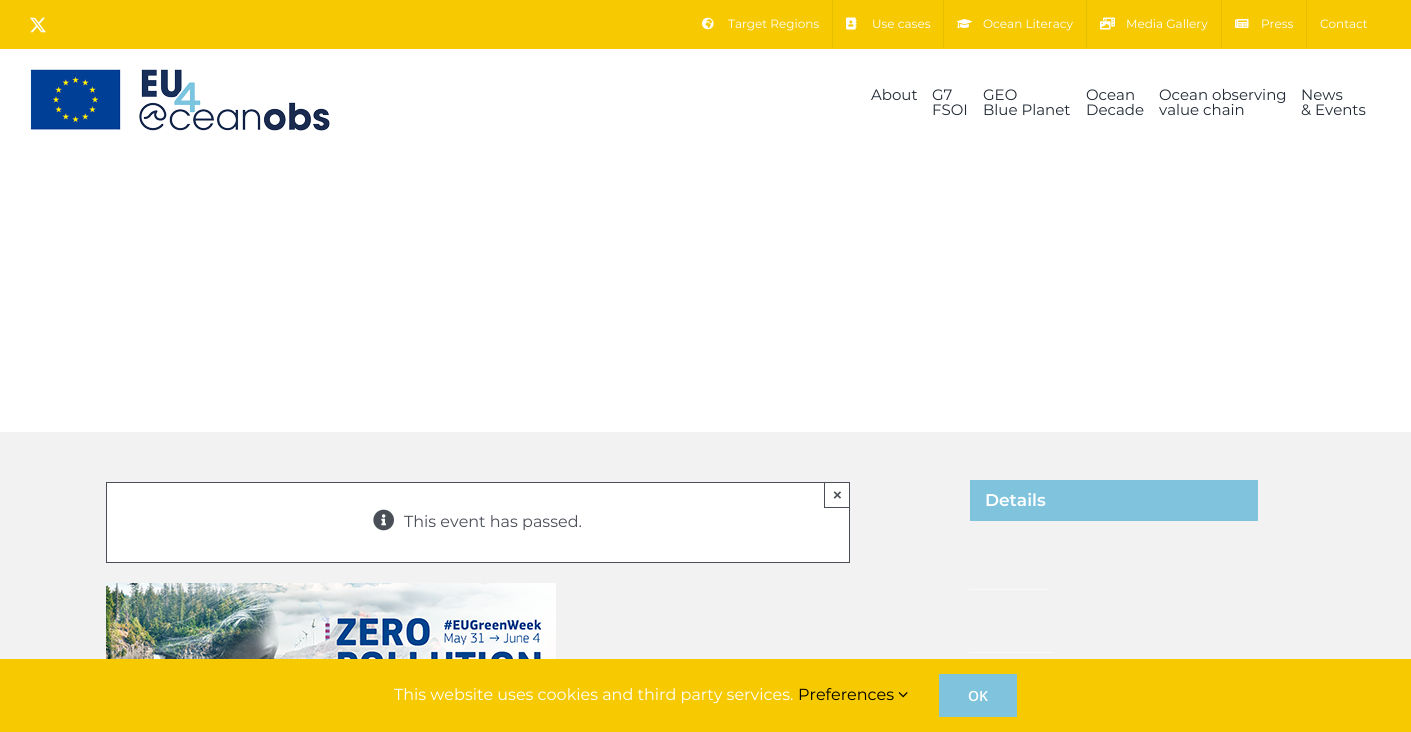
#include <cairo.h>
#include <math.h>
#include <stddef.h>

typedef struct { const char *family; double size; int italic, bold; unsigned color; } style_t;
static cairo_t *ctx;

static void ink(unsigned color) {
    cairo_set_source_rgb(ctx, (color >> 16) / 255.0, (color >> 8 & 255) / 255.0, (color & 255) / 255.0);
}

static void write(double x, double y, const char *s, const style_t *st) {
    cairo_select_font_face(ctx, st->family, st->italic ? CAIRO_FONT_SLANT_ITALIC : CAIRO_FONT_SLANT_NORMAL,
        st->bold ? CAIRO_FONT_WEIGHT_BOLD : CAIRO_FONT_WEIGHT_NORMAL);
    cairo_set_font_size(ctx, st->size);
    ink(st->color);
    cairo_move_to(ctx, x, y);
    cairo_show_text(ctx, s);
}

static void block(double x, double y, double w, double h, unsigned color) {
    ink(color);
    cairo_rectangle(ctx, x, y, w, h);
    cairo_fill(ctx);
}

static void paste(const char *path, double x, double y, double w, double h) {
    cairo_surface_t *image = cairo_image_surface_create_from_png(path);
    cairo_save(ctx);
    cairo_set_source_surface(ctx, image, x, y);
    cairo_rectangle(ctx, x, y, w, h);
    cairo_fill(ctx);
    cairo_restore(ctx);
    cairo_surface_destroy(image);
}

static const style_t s1 = {"Montserrat", 12, 0, 0, 0xffffff};
static const style_t s2 = {"Montserrat", 15, 0, 0, 0x212934};
static const style_t s3 = {"Liberation Sans", 15, 0, 1, 0x4a4e57};
static const style_t s4 = {"Montserrat", 16, 0, 0, 0x4a4e57};
static const style_t s5 = {"Montserrat SemiBold", 17, 0, 0, 0xffffff};
static const style_t s6 = {"Montserrat", 16, 0, 0, 0xffffff};
static const style_t s7 = {"Montserrat", 16, 0, 0, 0x000000};
static const style_t s8 = {"Open Sans SemiBold", 14, 0, 0, 0xffffff};

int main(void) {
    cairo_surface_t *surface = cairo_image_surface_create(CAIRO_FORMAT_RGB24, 1411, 732);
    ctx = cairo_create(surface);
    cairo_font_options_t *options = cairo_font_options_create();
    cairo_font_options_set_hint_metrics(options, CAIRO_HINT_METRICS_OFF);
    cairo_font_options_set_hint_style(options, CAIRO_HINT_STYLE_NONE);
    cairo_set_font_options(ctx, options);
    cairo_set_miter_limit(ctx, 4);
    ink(0xffffff);
    cairo_paint(ctx);
    block(0, 0, 1411, 49, 0xf6c900);
    paste("pic1.png", 30, 17, 16, 16);
    paste("pic2.png", 702, 17, 12, 13);
    write(728, 28, "Target Regions", &s1);
    block(832, 0, 1, 48, 0xe7bd00);
    paste("pic3.png", 846, 17, 11, 13);
    write(872, 28, "Use cases", &s1);
    block(943, 0, 1, 48, 0xe7bd00);
    paste("pic4.png", 957, 19, 15, 9);
    write(983, 28, "Ocean Literacy", &s1);
    block(1086, 0, 1, 48, 0xe7bd00);
    paste("pic5.png", 1100, 17, 15, 13);
    write(1126, 28, "Media Gallery", &s1);
    block(1221, 0, 1, 48, 0xe7bd00);
    paste("pic6.png", 1235, 19, 14, 9);
    write(1261, 28, "Press", &s1);
    block(1306, 0, 1, 48, 0xe7bd00);
    write(1320, 28, "Contact", &s1);
    paste("pic7.png", 30, 69, 300, 62);
    write(871, 100, "About", &s2);
    write(932, 100, "G7", &s2);
    write(932, 115, "FSOI", &s2);
    write(983, 100, "GEO", &s2);
    write(983, 115, "Blue Planet", &s2);
    write(1086, 100, "Ocean", &s2);
    write(1086, 115, "Decade", &s2);
    write(1159, 100, "Ocean observing", &s2);
    write(1159, 115, "value chain", &s2);
    write(1301, 100, "News", &s2);
    write(1301, 115, "& Events", &s2);
    block(0, 432, 1411, 227, 0xf2f2f2);
    ink(0xffffff);
    cairo_rectangle(ctx, 106.5, 482.5, 743, 80);
    cairo_fill_preserve(ctx);
    ink(0x4a4e57);
    cairo_set_line_width(ctx, 1);
    cairo_stroke(ctx);
    block(824, 507, 26, 1, 0x4a4e57);
    block(824, 482, 1, 26, 0x4a4e57);
    write(833, 500, "×", &s3);
    paste("pic8.png", 373, 509, 21, 22);
    write(404, 527, "This event has passed.", &s4);
    paste("pic9.png", 106, 583, 450, 76);
    block(970, 480, 288, 41, 0x80c3dd);
    write(985, 506, "Details", &s5);
    cairo_new_path(ctx);
    cairo_move_to(ctx, 969.5, 589.5);
    cairo_line_to(ctx, 1048, 589.5);
    cairo_set_dash(ctx, (double[]){1, 1}, 2, 0);
    cairo_stroke(ctx);
    cairo_new_path(ctx);
    cairo_move_to(ctx, 969.5, 652.5);
    cairo_line_to(ctx, 1052.5, 652.5);
    cairo_stroke(ctx);
    block(0, 659, 1411, 73, 0xf6c900);
    write(394, 700, "This website uses cookies and third party services.", &s6);
    write(798, 700, "Preferences", &s7);
    paste("pic10.png", 898, 692, 10, 6);
    block(939, 674, 78, 43, 0x80c3dd);
    write(968, 701, "OK", &s8);
    cairo_surface_write_to_png(surface, "screenshot.png");
    cairo_font_options_destroy(options);
    cairo_destroy(ctx);
    cairo_surface_destroy(surface);
    return 0;
}
